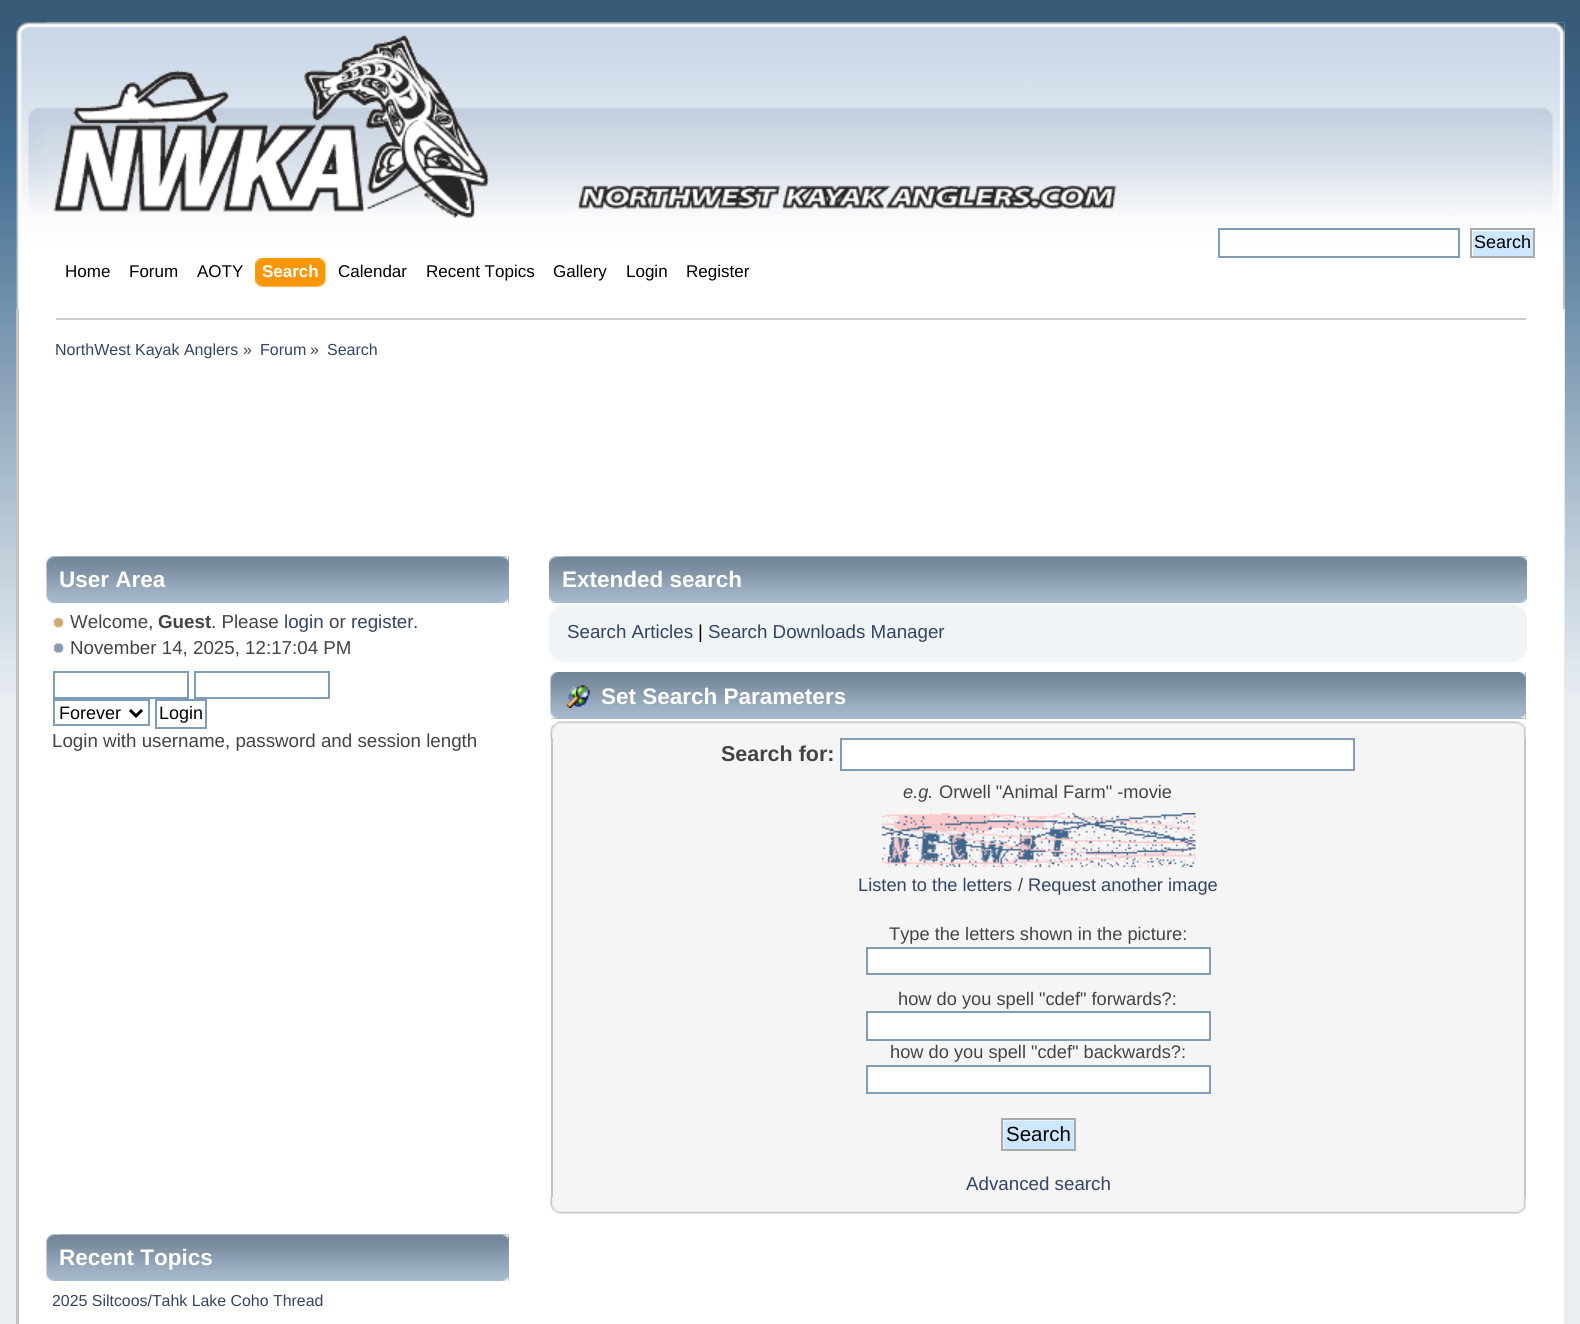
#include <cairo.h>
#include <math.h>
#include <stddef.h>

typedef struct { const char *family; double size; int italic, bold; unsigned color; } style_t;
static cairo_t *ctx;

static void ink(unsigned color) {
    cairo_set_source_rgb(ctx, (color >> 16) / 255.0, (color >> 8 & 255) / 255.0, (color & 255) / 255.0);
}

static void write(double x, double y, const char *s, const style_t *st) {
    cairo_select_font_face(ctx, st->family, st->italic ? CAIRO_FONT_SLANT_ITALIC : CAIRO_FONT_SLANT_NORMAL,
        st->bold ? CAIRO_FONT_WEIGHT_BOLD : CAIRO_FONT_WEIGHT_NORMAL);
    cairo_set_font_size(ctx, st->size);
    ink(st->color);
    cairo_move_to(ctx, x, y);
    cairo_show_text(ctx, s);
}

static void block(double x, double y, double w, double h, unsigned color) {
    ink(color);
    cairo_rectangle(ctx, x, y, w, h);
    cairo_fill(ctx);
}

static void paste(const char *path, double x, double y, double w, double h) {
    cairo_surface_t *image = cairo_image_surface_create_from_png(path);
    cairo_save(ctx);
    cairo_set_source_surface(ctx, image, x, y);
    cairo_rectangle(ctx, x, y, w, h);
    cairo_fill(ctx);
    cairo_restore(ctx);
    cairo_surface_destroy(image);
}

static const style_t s1 = {"Liberation Sans", 18, 0, 0, 0x000000};
static const style_t s2 = {"Liberation Sans", 17, 0, 0, 0x000000};
static const style_t s3 = {"Liberation Sans", 17, 0, 1, 0xffffff};
static const style_t s4 = {"Liberation Sans", 16, 0, 0, 0x334466};
static const style_t s5 = {"Liberation Sans", 16, 0, 0, 0x444444};
static const style_t s6 = {"Liberation Sans", 22.5, 0, 1, 0xffffff};
static const style_t s7 = {"Liberation Sans", 18.75, 0, 0, 0x444444};
static const style_t s8 = {"Liberation Sans", 18.75, 0, 1, 0x444444};
static const style_t s9 = {"Liberation Sans", 18.75, 0, 0, 0x334466};
static const style_t s10 = {"Liberation Sans", 15.9, 0, 0, 0x334466};
static const style_t s11 = {"Liberation Sans", 18.75, 0, 0, 0x000000};
static const style_t s12 = {"Liberation Sans", 21.5, 0, 1, 0x444444};
static const style_t s13 = {"Liberation Sans", 18.25, 1, 0, 0x444444};
static const style_t s14 = {"Liberation Sans", 18.25, 0, 0, 0x444444};
static const style_t s15 = {"Liberation Sans", 18.25, 0, 0, 0x334466};
static const style_t s16 = {"Liberation Sans", 20.5, 0, 0, 0x000000};

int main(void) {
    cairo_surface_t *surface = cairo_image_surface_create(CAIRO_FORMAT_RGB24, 1580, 1324);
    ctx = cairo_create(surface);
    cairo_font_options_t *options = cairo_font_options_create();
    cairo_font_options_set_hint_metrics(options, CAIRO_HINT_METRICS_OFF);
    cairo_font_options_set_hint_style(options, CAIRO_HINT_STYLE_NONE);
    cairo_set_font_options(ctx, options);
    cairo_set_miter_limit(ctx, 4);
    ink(0xe9eef2);
    cairo_paint(ctx);
    paste("pic1.png", 0, 0, 1580, 693);
    paste("pic2.png", 16, 22, 1549, 287);
    paste("pic3.png", 46, 22, 1519, 287);
    paste("pic4.png", 53, 35, 1064, 183);
    block(1220, 230, 238, 3, 0xffffff);
    cairo_rectangle(ctx, 1219, 229, 240, 28);
    ink(0x7f9db9);
    cairo_stroke(ctx);
    paste("pic5.png", 1472, 230, 61, 26);
    cairo_rectangle(ctx, 1471, 229, 63, 28);
    ink(0xaaaaaa);
    cairo_stroke(ctx);
    write(1474, 248, "Search", &s1);
    write(65, 277, "Home", &s2);
    write(129, 277, "Forum", &s2);
    write(197, 277, "AOTY", &s2);
    paste("pic6.png", 262, 258, 64, 29);
    paste("pic7.png", 255, 258, 63, 29);
    write(262, 277, "Search", &s3);
    write(338, 277, "Calendar", &s2);
    write(426, 277, "Recent Topics", &s2);
    write(553, 277, "Gallery", &s2);
    write(626, 277, "Login", &s2);
    write(686, 277, "Register", &s2);
    block(19, 309, 1545, 1015, 0xffffff);
    block(16, 309, 3, 1015, 0xc3c3c3);
    block(1564, 309, 1, 1015, 0xeaeaea);
    block(56, 318, 1470, 2, 0xcccccc);
    write(55, 355, "NorthWest Kayak Anglers", &s4);
    write(243, 355, "»", &s5);
    write(260, 355, "Forum", &s4);
    write(310, 355, "»", &s5);
    write(327, 355, "Search", &s4);
    block(508, 557, 1, 46, 0x99abbf);
    paste("pic8.png", 46, 556, 463, 47);
    paste("pic9.png", 60, 556, 449, 47);
    write(59, 587, "User Area", &s6);
    paste("pic10.png", 53, 617, 11, 11);
    write(70, 628, "Welcome,", &s7);
    write(158, 628, "Guest", &s8);
    write(211, 628, ". Please", &s7);
    write(284, 628, "login", &s9);
    write(329, 628, "or", &s7);
    write(351, 628, "register", &s9);
    write(413, 628, ".", &s7);
    paste("pic11.png", 53, 643, 11, 10);
    write(70, 654, "November 14, 2025, 12:17:04 PM", &s7);
    cairo_rectangle(ctx, 54, 672, 134, 26);
    ink(0x7f9db9);
    cairo_stroke(ctx);
    cairo_rectangle(ctx, 195, 672, 134, 26);
    cairo_stroke(ctx);
    cairo_rectangle(ctx, 54, 700, 95, 25);
    cairo_stroke(ctx);
    cairo_new_path(ctx);
    cairo_move_to(ctx, 130, 710);
    cairo_line_to(ctx, 136, 716);
    cairo_line_to(ctx, 142, 710);
    ink(0x000000);
    cairo_set_line_width(ctx, 3);
    cairo_stroke(ctx);
    write(59, 719, "Forever", &s1);
    cairo_rectangle(ctx, 156, 700, 50, 28);
    ink(0x7f9db9);
    cairo_set_line_width(ctx, 2);
    cairo_stroke(ctx);
    write(159, 719, "Login", &s1);
    write(52, 747, "Login with username, password and session length", &s7);
    block(508, 1235, 1, 46, 0x99abbf);
    paste("pic8.png", 46, 1234, 463, 47);
    paste("pic9.png", 60, 1234, 449, 47);
    write(59, 1265, "Recent Topics", &s6);
    cairo_save(ctx);
    cairo_rectangle(ctx, 53, 1289, 450, 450);
    cairo_clip(ctx);
    write(52, 1306, "2025 Siltcoos/Tahk Lake Coho Thread", &s10);
    cairo_restore(ctx);
    paste("pic12.png", 549, 556, 978, 47);
    paste("pic13.png", 562, 556, 965, 47);
    write(562, 587, "Extended search", &s6);
    block(549, 616, 978, 46, 0xf0f4f7);
    paste("pic14.png", 549, 604, 978, 12);
    paste("pic15.png", 1516, 604, 11, 12);
    write(567, 638, "Search Articles", &s9);
    write(698, 638, "|", &s11);
    write(708, 638, "Search Downloads Manager", &s9);
    paste("pic16.png", 549, 650, 11, 12);
    paste("pic17.png", 1516, 650, 11, 12);
    block(551, 672, 975, 47, 0x99abbf);
    paste("pic18.png", 550, 672, 976, 47);
    paste("pic19.png", 1519, 672, 7, 47);
    paste("pic20.png", 566, 685, 24, 23);
    write(601, 704, "Set Search Parameters", &s6);
    paste("pic21.png", 550, 721, 976, 17);
    paste("pic22.png", 1517, 721, 9, 17);
    block(553, 738, 971, 459, 0xf5f5f5);
    block(1524, 738, 2, 459, 0xc5c5c5);
    block(551, 738, 2, 459, 0xc5c5c5);
    write(721, 761, "Search for:", &s12);
    ink(0xffffff);
    cairo_rectangle(ctx, 841, 739, 513, 31);
    cairo_fill_preserve(ctx);
    ink(0x7f9db9);
    cairo_stroke(ctx);
    write(903, 798, "e.g.", &s13);
    write(939, 798, "Orwell \"Animal Farm\" -movie", &s14);
    paste("pic23.png", 882, 813, 314, 54);
    write(858, 891, "Listen to the letters", &s15);
    write(1018, 891, "/", &s14);
    write(1028, 891, "Request another image", &s15);
    write(889, 940, "Type the letters shown in the picture:", &s14);
    ink(0xffffff);
    cairo_rectangle(ctx, 867, 948, 343, 26);
    cairo_fill_preserve(ctx);
    ink(0x7f9db9);
    cairo_stroke(ctx);
    write(898, 1005, "how do you spell \"cdef\" forwards?:", &s14);
    ink(0xffffff);
    cairo_rectangle(ctx, 867, 1012, 343, 28);
    cairo_fill_preserve(ctx);
    ink(0x7f9db9);
    cairo_stroke(ctx);
    write(890, 1058, "how do you spell \"cdef\" backwards?:", &s14);
    ink(0xffffff);
    cairo_rectangle(ctx, 867, 1066, 343, 27);
    cairo_fill_preserve(ctx);
    ink(0x7f9db9);
    cairo_stroke(ctx);
    paste("pic24.png", 1003, 1120, 71, 29);
    cairo_rectangle(ctx, 1002, 1119, 73, 31);
    ink(0xaaaaaa);
    cairo_stroke(ctx);
    write(1006, 1141, "Search", &s16);
    write(966, 1190, "Advanced search", &s9);
    paste("pic25.png", 550, 1197, 976, 17);
    paste("pic26.png", 1517, 1197, 9, 17);
    cairo_surface_write_to_png(surface, "screenshot.png");
    cairo_font_options_destroy(options);
    cairo_destroy(ctx);
    cairo_surface_destroy(surface);
    return 0;
}
